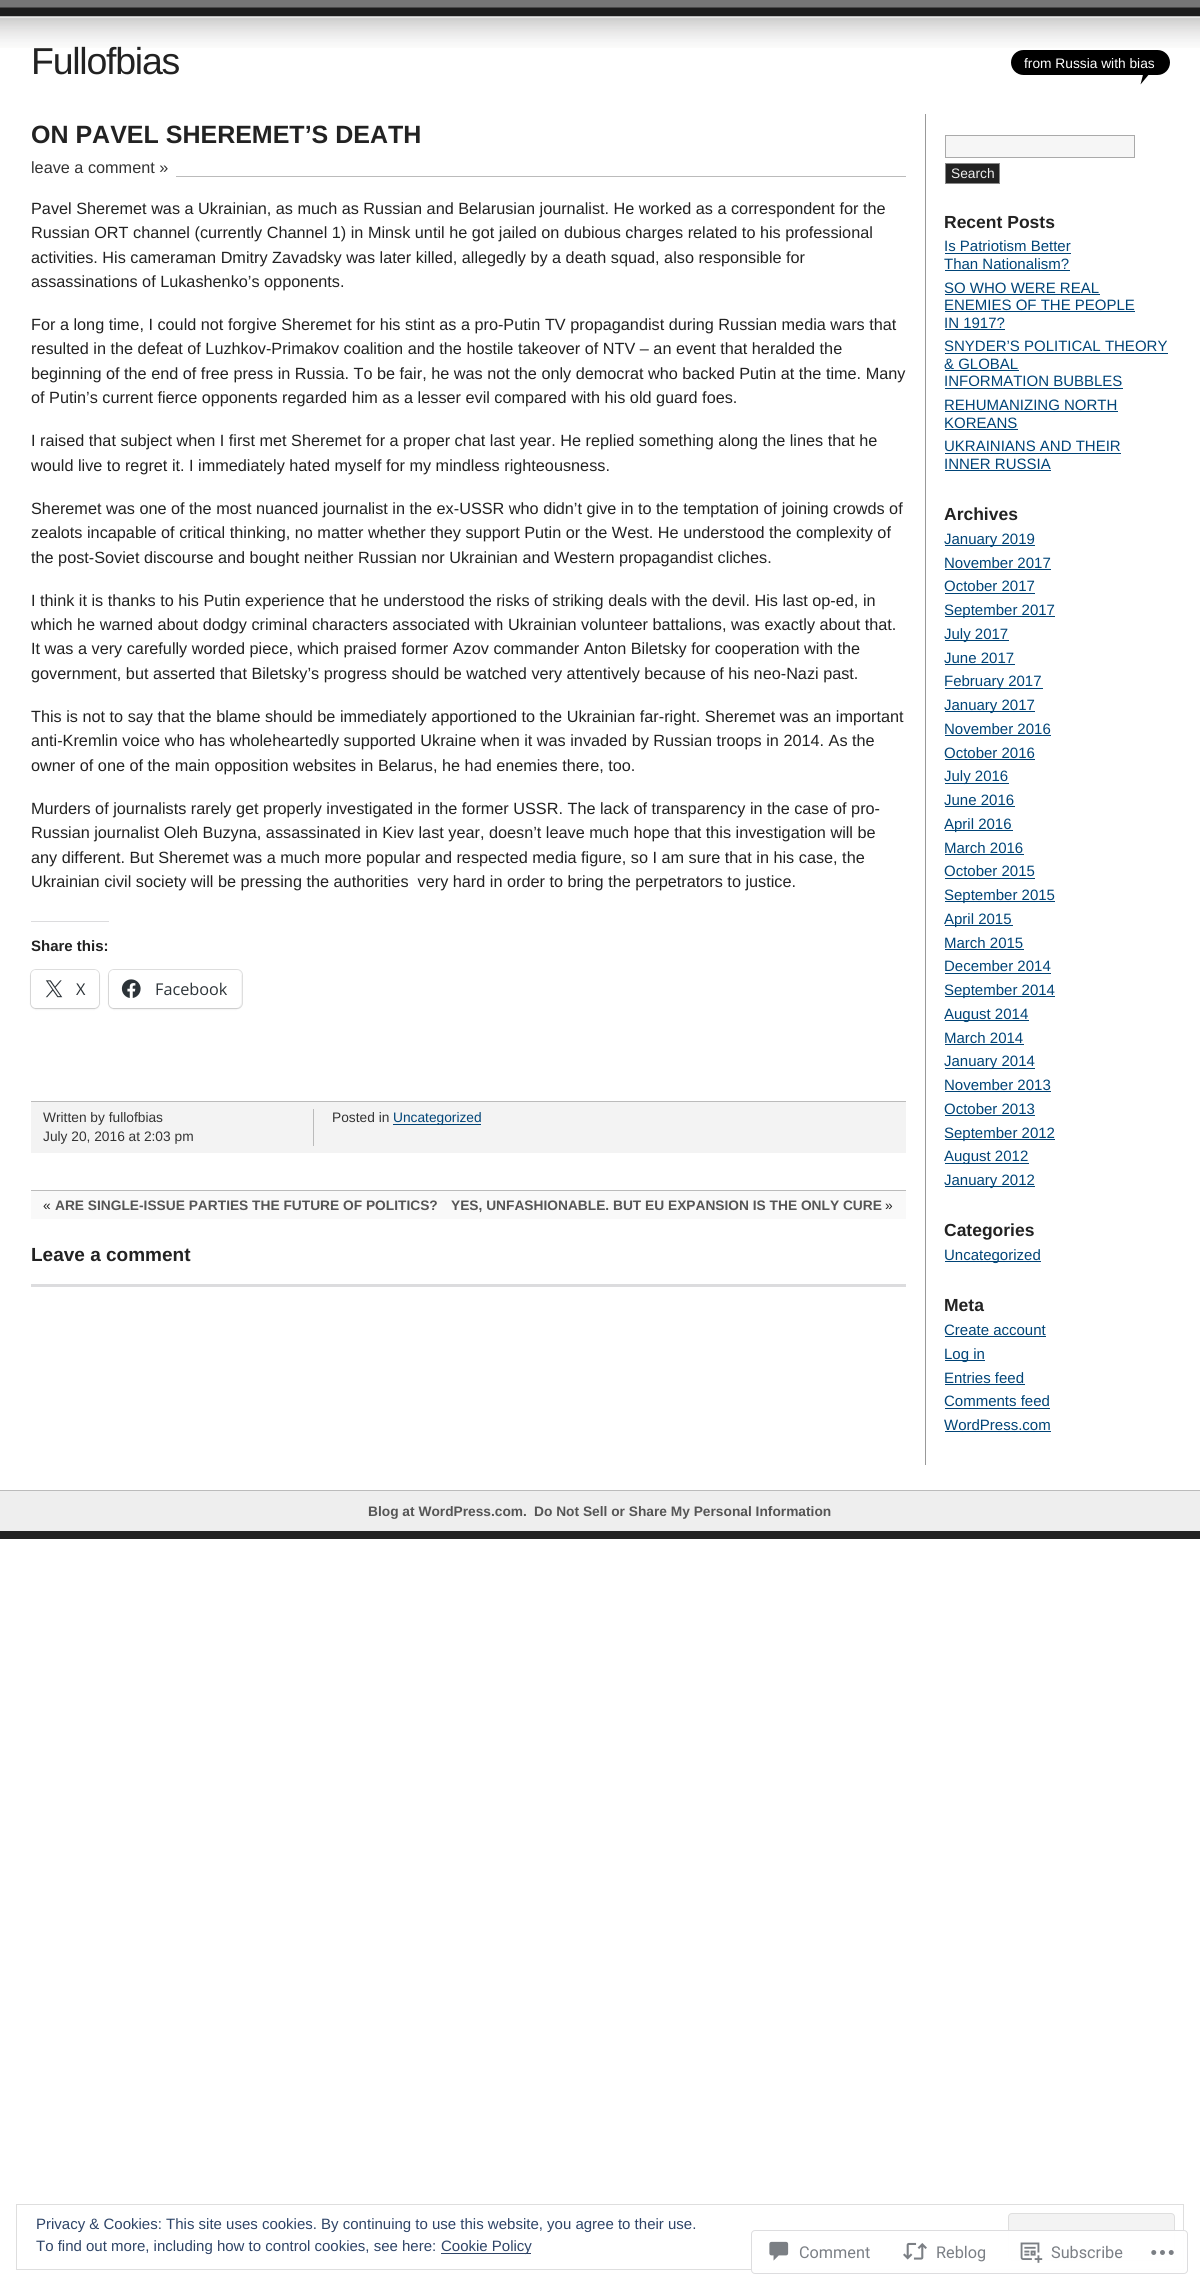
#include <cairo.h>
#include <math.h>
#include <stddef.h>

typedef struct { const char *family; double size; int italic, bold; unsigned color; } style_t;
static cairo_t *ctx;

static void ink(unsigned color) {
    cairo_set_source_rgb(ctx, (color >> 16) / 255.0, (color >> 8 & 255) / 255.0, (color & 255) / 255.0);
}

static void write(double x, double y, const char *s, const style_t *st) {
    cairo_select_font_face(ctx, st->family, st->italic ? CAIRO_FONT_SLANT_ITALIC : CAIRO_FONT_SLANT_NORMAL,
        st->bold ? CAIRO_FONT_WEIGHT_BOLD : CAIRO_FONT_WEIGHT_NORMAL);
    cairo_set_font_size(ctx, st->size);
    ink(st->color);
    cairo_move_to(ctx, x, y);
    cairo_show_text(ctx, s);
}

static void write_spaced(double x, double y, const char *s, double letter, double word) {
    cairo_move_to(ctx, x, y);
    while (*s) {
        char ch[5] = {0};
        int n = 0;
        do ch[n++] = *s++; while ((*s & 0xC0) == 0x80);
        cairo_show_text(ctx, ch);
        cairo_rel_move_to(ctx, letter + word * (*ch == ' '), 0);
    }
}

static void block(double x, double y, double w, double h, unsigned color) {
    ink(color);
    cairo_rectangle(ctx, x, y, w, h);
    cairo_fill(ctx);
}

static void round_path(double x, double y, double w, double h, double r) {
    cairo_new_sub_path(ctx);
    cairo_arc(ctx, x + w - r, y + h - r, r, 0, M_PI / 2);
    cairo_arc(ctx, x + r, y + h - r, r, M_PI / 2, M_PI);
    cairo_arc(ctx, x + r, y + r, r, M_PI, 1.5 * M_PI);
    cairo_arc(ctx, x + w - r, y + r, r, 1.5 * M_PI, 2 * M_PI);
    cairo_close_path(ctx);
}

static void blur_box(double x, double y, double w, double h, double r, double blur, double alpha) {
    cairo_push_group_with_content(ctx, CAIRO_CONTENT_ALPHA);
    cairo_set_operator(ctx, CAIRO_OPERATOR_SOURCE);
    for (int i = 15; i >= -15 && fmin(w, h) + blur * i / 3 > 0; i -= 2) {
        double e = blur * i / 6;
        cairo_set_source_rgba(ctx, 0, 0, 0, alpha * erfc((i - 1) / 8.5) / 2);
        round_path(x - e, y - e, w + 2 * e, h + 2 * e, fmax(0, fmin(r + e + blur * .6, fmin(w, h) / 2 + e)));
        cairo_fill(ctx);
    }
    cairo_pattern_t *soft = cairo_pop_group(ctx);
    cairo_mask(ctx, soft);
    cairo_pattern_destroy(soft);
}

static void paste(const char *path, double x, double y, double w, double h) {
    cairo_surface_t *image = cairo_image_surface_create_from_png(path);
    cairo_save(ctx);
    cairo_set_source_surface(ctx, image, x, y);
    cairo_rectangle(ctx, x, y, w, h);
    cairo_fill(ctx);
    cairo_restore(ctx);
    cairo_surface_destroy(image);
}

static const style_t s1 = {"Liberation Sans", 13.75, 0, 0, 0xffffff};
static const style_t s2 = {"Liberation Sans", 25, 0, 1, 0x222222};
static const style_t s3 = {"Liberation Sans", 16.25, 0, 0, 0x333333};
static const style_t s4 = {"Liberation Sans", 16.25, 0, 0, 0x222222};
static const style_t s5 = {"Liberation Sans", 15, 0, 1, 0x222222};
static const style_t s6 = {"Open Sans", 16.25, 0, 0, 0x2c3338};
static const style_t s7 = {"Liberation Sans", 13.75, 0, 0, 0x333333};
static const style_t s8 = {"Liberation Sans", 13.75, 0, 0, 0x004477};
static const style_t s9 = {"Liberation Sans", 13.75, 0, 0, 0x222222};
static const style_t s10 = {"Liberation Sans", 13.75, 0, 1, 0x555555};
static const style_t s11 = {"Liberation Sans", 19, 0, 1, 0x222222};
static const style_t s12 = {"Liberation Sans", 13.75, 0, 0, 0xeeeeee};
static const style_t s13 = {"Liberation Sans", 17.5, 0, 1, 0x222222};
static const style_t s14 = {"Liberation Sans", 15, 0, 0, 0x004477};
static const style_t s15 = {"Liberation Sans", 15, 0, 0, 0x2e4467};
static const style_t s16 = {"Roboto", 16.25, 0, 0, 0x7b7f85};

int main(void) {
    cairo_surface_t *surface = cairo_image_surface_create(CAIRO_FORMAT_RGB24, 1200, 2286);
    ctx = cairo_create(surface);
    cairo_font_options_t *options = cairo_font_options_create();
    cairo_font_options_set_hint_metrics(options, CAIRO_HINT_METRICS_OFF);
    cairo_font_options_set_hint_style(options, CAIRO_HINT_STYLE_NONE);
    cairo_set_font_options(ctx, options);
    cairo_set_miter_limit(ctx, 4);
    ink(0xffffff);
    cairo_paint(ctx);
    paste("pic1.png", 0, 0, 1200, 48);
    cairo_select_font_face(ctx, "Liberation Sans", CAIRO_FONT_SLANT_NORMAL, CAIRO_FONT_WEIGHT_NORMAL);
    cairo_set_font_size(ctx, 37.5);
    ink(0x222222);
    write_spaced(31, 74, "Fullofbias", -1.25, 0);
    ink(0x000000);
    cairo_new_path(ctx);
    cairo_move_to(ctx, 1155.5, 66.5);
    cairo_line_to(ctx, 1140.5, 84.5);
    cairo_line_to(ctx, 1147, 59);
    cairo_close_path(ctx);
    cairo_fill(ctx);
    round_path(1011, 50, 159, 25, 12.5);
    cairo_fill(ctx);
    write(1024, 68, "from Russia with bias", &s1);
    write(31, 143, "ON PAVEL SHEREMET’S DEATH", &s2);
    block(176, 176, 730, 1, 0xbbbbbb);
    write(31, 173, "leave a comment »", &s3);
    write(31, 214, "Pavel Sheremet was a Ukrainian, as much as Russian and Belarusian journalist. He worked as a correspondent for the", &s4);
    write(31, 238, "Russian ORT channel (currently Channel 1) in Minsk until he got jailed on dubious charges related to his professional", &s4);
    write(31, 263, "activities. His cameraman Dmitry Zavadsky was later killed, allegedly by a death squad, also responsible for", &s4);
    write(31, 287, "assassinations of Lukashenko’s opponents.", &s4);
    write(31, 330, "For a long time, I could not forgive Sheremet for his stint as a pro-Putin TV propagandist during Russian media wars that", &s4);
    write(31, 354, "resulted in the defeat of Luzhkov-Primakov coalition and the hostile takeover of NTV – an event that heralded the", &s4);
    write(31, 379, "beginning of the end of free press in Russia. To be fair, he was not the only democrat who backed Putin at the time. Many", &s4);
    write(31, 403, "of Putin’s current fierce opponents regarded him as a lesser evil compared with his old guard foes.", &s4);
    write(31, 446, "I raised that subject when I first met Sheremet for a proper chat last year. He replied something along the lines that he", &s4);
    write(31, 471, "would live to regret it. I immediately hated myself for my mindless righteousness.", &s4);
    write(31, 514, "Sheremet was one of the most nuanced journalist in the ex-USSR who didn’t give in to the temptation of joining crowds of", &s4);
    write(31, 538, "zealots incapable of critical thinking, no matter whether they support Putin or the West. He understood the complexity of", &s4);
    write(31, 563, "the post-Soviet discourse and bought neither Russian nor Ukrainian and Western propagandist cliches.", &s4);
    write(31, 606, "I think it is thanks to his Putin experience that he understood the risks of striking deals with the devil. His last op-ed, in", &s4);
    write(31, 630, "which he warned about dodgy criminal characters associated with Ukrainian volunteer battalions, was exactly about that.", &s4);
    write(31, 654, "It was a very carefully worded piece, which praised former Azov commander Anton Biletsky for cooperation with the", &s4);
    write(31, 679, "government, but asserted that Biletsky’s progress should be watched very attentively because of his neo-Nazi past.", &s4);
    write(31, 722, "This is not to say that the blame should be immediately apportioned to the Ukrainian far-right. Sheremet was an important", &s4);
    write(31, 746, "anti-Kremlin voice who has wholeheartedly supported Ukraine when it was invaded by Russian troops in 2014. As the", &s4);
    write(31, 771, "owner of one of the main opposition websites in Belarus, he had enemies there, too.", &s4);
    write(31, 814, "Murders of journalists rarely get properly investigated in the former USSR. The lack of transparency in the case of pro-", &s4);
    write(31, 838, "Russian journalist Oleh Buzyna, assassinated in Kiev last year, doesn’t leave much hope that this investigation will be", &s4);
    write(31, 863, "any different. But Sheremet was a much more popular and respected media figure, so I am sure that in his case, the", &s4);
    write(31, 887, "Ukrainian civil society will be pressing the authorities  very hard in order to bring the perpetrators to justice.", &s4);
    block(31, 921, 78, 1, 0xdcdcde);
    write(31, 951, "Share this:", &s5);
    round_path(30.5, 969.5, 69, 39, 5.5);
    ink(0xe0e0e0);
    cairo_set_line_width(ctx, 1);
    cairo_stroke(ctx);
    ink(0x000000);
    blur_box(31, 971, 68, 38, 5, 1, 0.12);
    ink(0xffffff);
    round_path(31, 970, 68, 38, 5);
    cairo_fill(ctx);
    paste("pic2.png", 45, 980, 18, 18);
    write(76, 995, "X", &s6);
    round_path(108.5, 969.5, 134, 39, 5.5);
    ink(0xe0e0e0);
    cairo_stroke(ctx);
    ink(0x000000);
    blur_box(109, 971, 132, 38, 5, 1, 0.12);
    ink(0xffffff);
    round_path(109, 970, 132, 38, 5);
    cairo_fill(ctx);
    paste("pic3.png", 121, 979, 20, 19);
    write(155, 995, "Facebook", &s6);
    block(31, 1102, 875, 51, 0xf3f3f3);
    block(31, 1101, 875, 1, 0xbbbbbb);
    block(313, 1109, 1, 37, 0xbbbbbb);
    write(43, 1122, "Written by fullofbias", &s7);
    write(43, 1141, "July 20, 2016 at 2:03 pm", &s7);
    write(332, 1122, "Posted in", &s7);
    block(393, 1124, 88, 1, 0x004477);
    write(393, 1122, "Uncategorized", &s8);
    block(31, 1191, 875, 28, 0xf9f9f9);
    block(31, 1190, 875, 1, 0xbbbbbb);
    write(43, 1210, "«", &s9);
    write(55, 1210, "ARE SINGLE-ISSUE PARTIES THE FUTURE OF POLITICS?", &s10);
    write(451, 1210, "YES, UNFASHIONABLE. BUT EU EXPANSION IS THE ONLY CURE", &s10);
    write(885, 1210, "»", &s9);
    write(31, 1261, "Leave a comment", &s11);
    block(31, 1284, 875, 3, 0xdcdcde);
    block(925, 114, 1, 1351, 0x999999);
    ink(0xf6f6f6);
    cairo_rectangle(ctx, 945.5, 135.5, 189, 22);
    cairo_fill_preserve(ctx);
    ink(0xaaaaaa);
    cairo_stroke(ctx);
    ink(0x222222);
    cairo_rectangle(ctx, 945.5, 163.5, 54, 20);
    cairo_fill_preserve(ctx);
    ink(0x888888);
    cairo_stroke(ctx);
    write(951, 178, "Search", &s12);
    write(944, 228, "Recent Posts", &s13);
    write(944, 251, "Is Patriotism Better", &s14);
    block(945, 253, 126, 1, 0x004477);
    write(944, 269, "Than Nationalism?", &s14);
    block(945, 270, 125, 1, 0x004477);
    write(944, 293, "SO WHO WERE REAL", &s14);
    block(945, 294, 155, 1, 0x004477);
    write(944, 310, "ENEMIES OF THE PEOPLE", &s14);
    block(945, 311, 190, 1, 0x004477);
    write(944, 328, "IN 1917?", &s14);
    block(945, 329, 60, 1, 0x004477);
    write(944, 351, "SNYDER’S POLITICAL THEORY", &s14);
    block(945, 353, 223, 1, 0x004477);
    write(944, 369, "& GLOBAL", &s14);
    block(945, 370, 74, 1, 0x004477);
    write(944, 386, "INFORMATION BUBBLES", &s14);
    block(945, 388, 178, 1, 0x004477);
    write(944, 410, "REHUMANIZING NORTH", &s14);
    block(945, 411, 173, 1, 0x004477);
    write(944, 428, "KOREANS", &s14);
    block(945, 429, 73, 1, 0x004477);
    write(944, 451, "UKRAINIANS AND THEIR", &s14);
    block(945, 453, 176, 1, 0x004477);
    write(944, 469, "INNER RUSSIA", &s14);
    block(945, 470, 106, 1, 0x004477);
    write(944, 520, "Archives", &s13);
    block(945, 545, 90, 1, 0x004477);
    write(944, 544, "January 2019", &s14);
    write(944, 568, "November 2017", &s14);
    block(945, 569, 106, 1, 0x004477);
    write(944, 591, "October 2017", &s14);
    block(945, 593, 90, 1, 0x004477);
    block(945, 616, 110, 1, 0x004477);
    write(944, 615, "September 2017", &s14);
    block(945, 640, 64, 1, 0x004477);
    write(944, 639, "July 2017", &s14);
    write(944, 663, "June 2017", &s14);
    block(945, 664, 70, 1, 0x004477);
    block(945, 688, 98, 1, 0x004477);
    write(944, 686, "February 2017", &s14);
    block(945, 711, 90, 1, 0x004477);
    write(944, 710, "January 2017", &s14);
    write(944, 734, "November 2016", &s14);
    block(945, 735, 106, 1, 0x004477);
    write(944, 758, "October 2016", &s14);
    block(945, 759, 90, 1, 0x004477);
    block(945, 783, 64, 1, 0x004477);
    write(944, 781, "July 2016", &s14);
    write(944, 805, "June 2016", &s14);
    block(945, 806, 70, 1, 0x004477);
    block(945, 830, 68, 1, 0x004477);
    write(944, 829, "April 2016", &s14);
    write(944, 853, "March 2016", &s14);
    block(945, 854, 79, 1, 0x004477);
    write(944, 876, "October 2015", &s14);
    block(945, 878, 90, 1, 0x004477);
    block(945, 901, 110, 1, 0x004477);
    write(944, 900, "September 2015", &s14);
    block(945, 925, 68, 1, 0x004477);
    write(944, 924, "April 2015", &s14);
    write(944, 948, "March 2015", &s14);
    block(945, 949, 79, 1, 0x004477);
    write(944, 971, "December 2014", &s14);
    block(945, 973, 106, 1, 0x004477);
    block(945, 996, 110, 1, 0x004477);
    write(944, 995, "September 2014", &s14);
    block(945, 1020, 84, 1, 0x004477);
    write(944, 1019, "August 2014", &s14);
    write(944, 1043, "March 2014", &s14);
    block(945, 1044, 79, 1, 0x004477);
    block(945, 1068, 90, 1, 0x004477);
    write(944, 1066, "January 2014", &s14);
    write(944, 1090, "November 2013", &s14);
    block(945, 1091, 106, 1, 0x004477);
    write(944, 1114, "October 2013", &s14);
    block(945, 1115, 90, 1, 0x004477);
    block(945, 1139, 110, 1, 0x004477);
    write(944, 1138, "September 2012", &s14);
    block(945, 1163, 84, 1, 0x004477);
    write(944, 1161, "August 2012", &s14);
    block(945, 1186, 90, 1, 0x004477);
    write(944, 1185, "January 2012", &s14);
    write(944, 1236, "Categories", &s13);
    block(945, 1261, 96, 1, 0x004477);
    write(944, 1260, "Uncategorized", &s14);
    write(944, 1311, "Meta", &s13);
    write(944, 1335, "Create account", &s14);
    block(945, 1336, 101, 1, 0x004477);
    block(945, 1360, 40, 1, 0x004477);
    write(944, 1359, "Log in", &s14);
    write(944, 1383, "Entries feed", &s14);
    block(945, 1384, 80, 1, 0x004477);
    write(944, 1406, "Comments feed", &s14);
    block(945, 1408, 105, 1, 0x004477);
    write(944, 1430, "WordPress.com", &s14);
    block(945, 1431, 106, 1, 0x004477);
    block(0, 1491, 1200, 40, 0xeeeeee);
    block(0, 1490, 1200, 1, 0xbbbbbb);
    block(0, 1531, 1200, 8, 0x222222);
    write(368, 1516, "Blog at WordPress.com.", &s10);
    write(534, 1516, "Do Not Sell or Share My Personal Information", &s10);
    cairo_rectangle(ctx, 16.5, 2204.5, 1167, 65);
    ink(0xdedede);
    cairo_stroke(ctx);
    write(36, 2229, "Privacy & Cookies: This site uses cookies. By continuing to use this website, you agree to their use.", &s15);
    ink(0xf3f3f3);
    round_path(1008.5, 2213.5, 166, 47, 3.5);
    cairo_fill_preserve(ctx);
    ink(0xdedede);
    cairo_stroke(ctx);
    write(36, 2251, "To find out more, including how to control cookies, see here:", &s15);
    block(441, 2253, 90, 1, 0x2e4467);
    write(441, 2251, "Cookie Policy", &s15);
    cairo_set_source_rgba(ctx, 1, 1, 1, 0.98);
    round_path(751, 2230, 437, 44, 4);
    cairo_fill(ctx);
    round_path(751.5, 2230.5, 436, 43, 3.5);
    cairo_set_source_rgba(ctx, 0.863, 0.863, 0.871, 0.98);
    cairo_stroke(ctx);
    paste("pic4.png", 769, 2241, 20, 20);
    write(799, 2258, "Comment", &s16);
    paste("pic5.png", 903, 2242, 24, 18);
    write(936, 2258, "Reblog", &s16);
    paste("pic6.png", 1020, 2242, 23, 21);
    write(1051, 2258, "Subscribe", &s16);
    paste("pic7.png", 1151, 2250, 23, 5);
    cairo_surface_write_to_png(surface, "screenshot.png");
    cairo_font_options_destroy(options);
    cairo_destroy(ctx);
    cairo_surface_destroy(surface);
    return 0;
}
